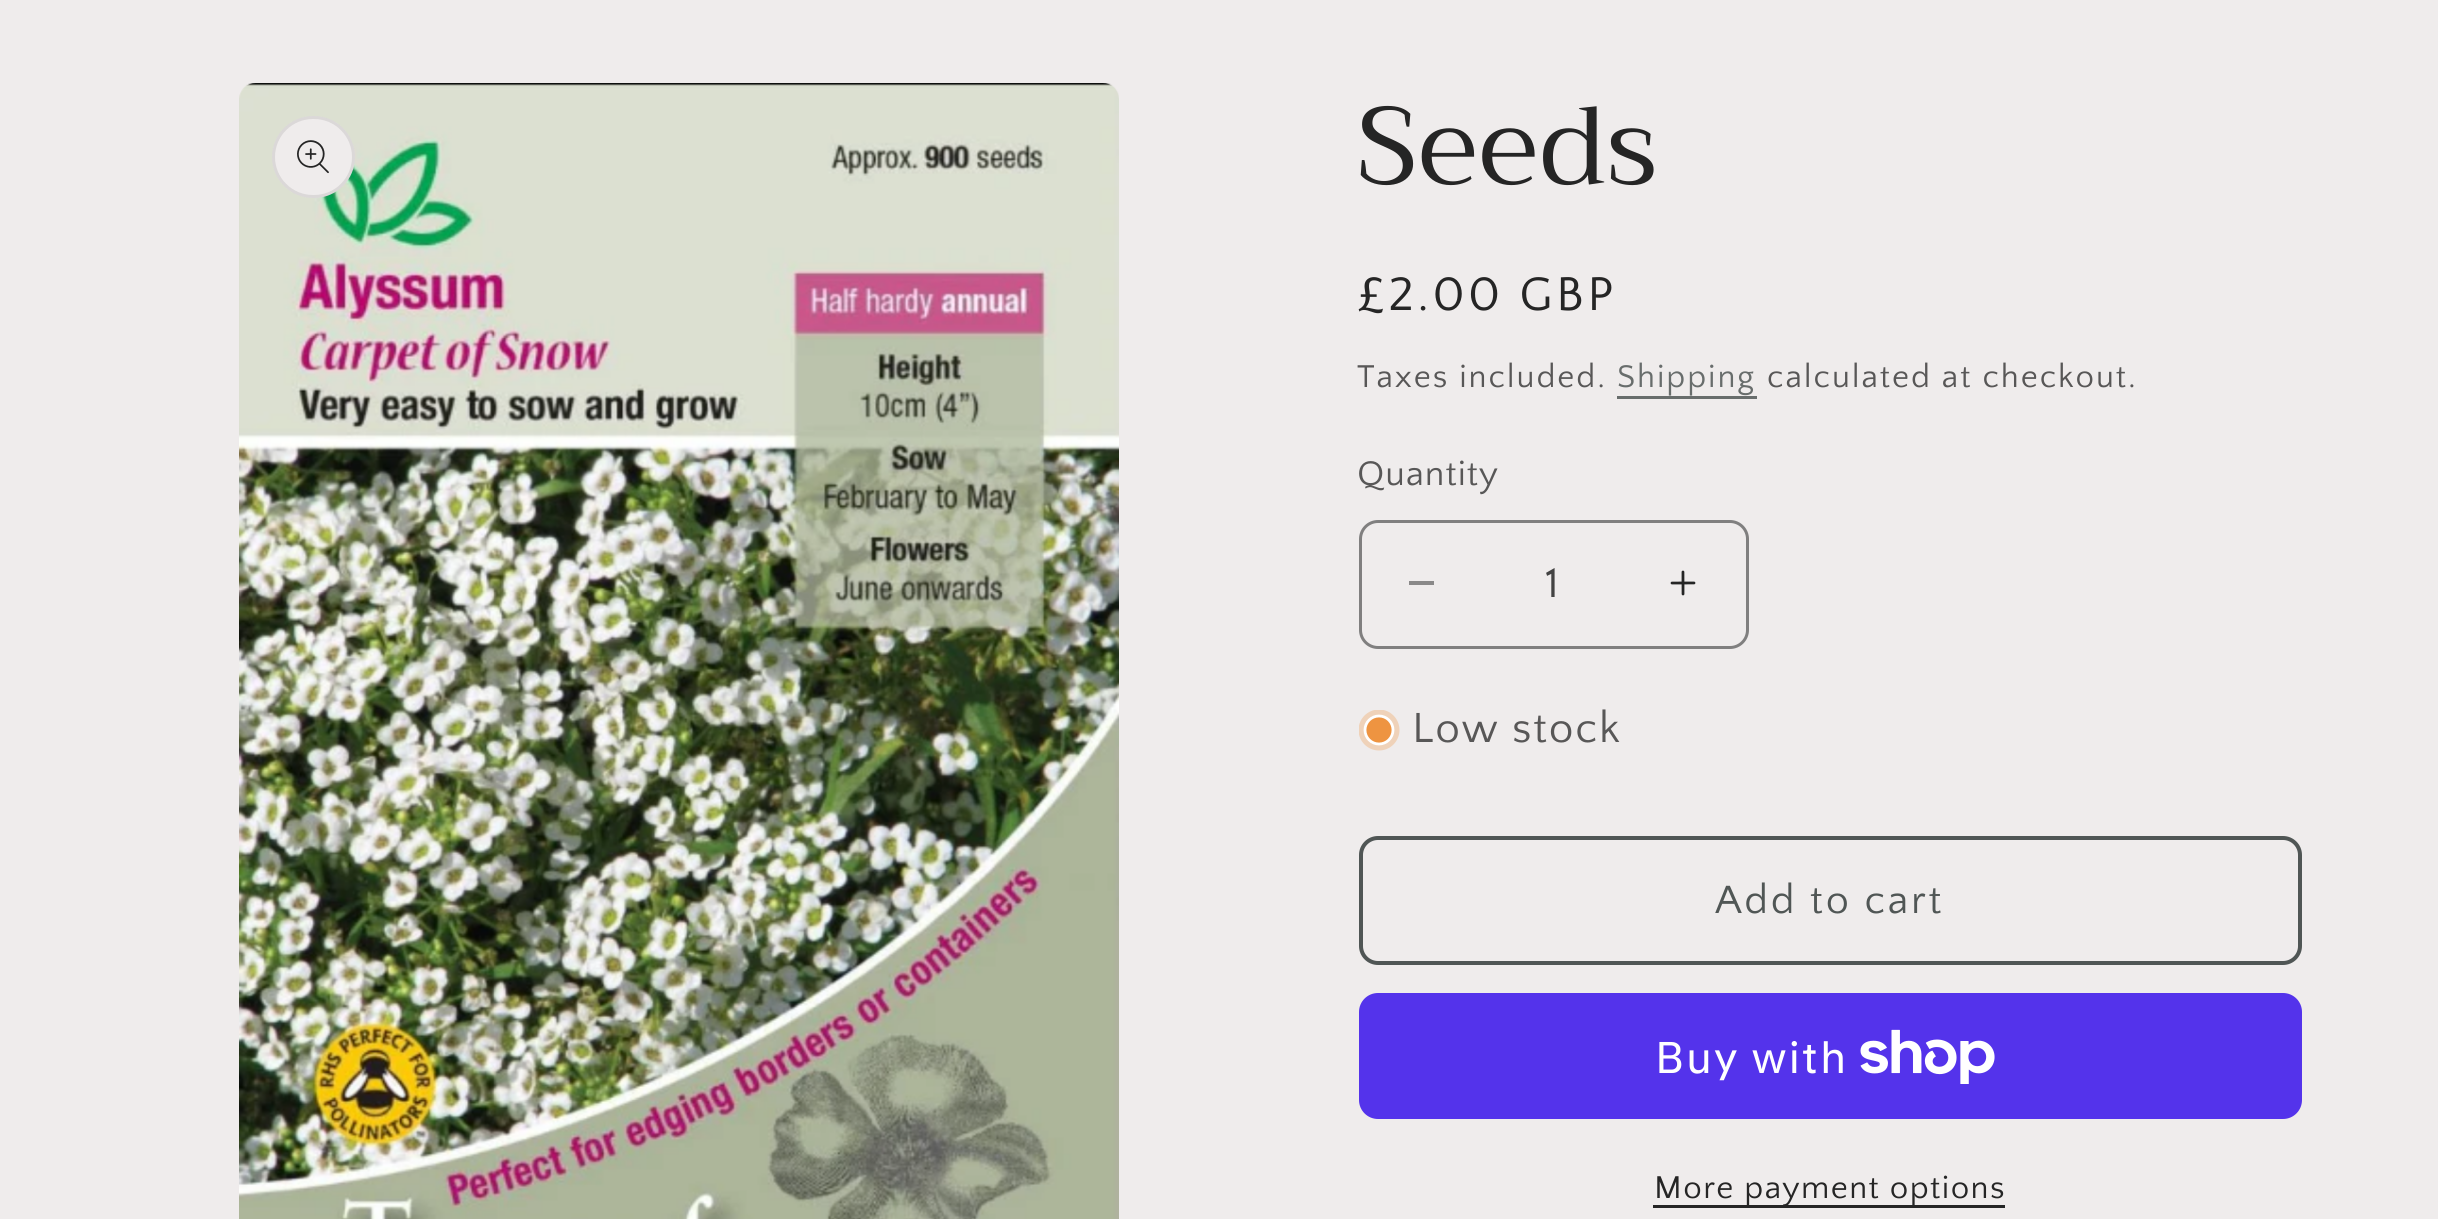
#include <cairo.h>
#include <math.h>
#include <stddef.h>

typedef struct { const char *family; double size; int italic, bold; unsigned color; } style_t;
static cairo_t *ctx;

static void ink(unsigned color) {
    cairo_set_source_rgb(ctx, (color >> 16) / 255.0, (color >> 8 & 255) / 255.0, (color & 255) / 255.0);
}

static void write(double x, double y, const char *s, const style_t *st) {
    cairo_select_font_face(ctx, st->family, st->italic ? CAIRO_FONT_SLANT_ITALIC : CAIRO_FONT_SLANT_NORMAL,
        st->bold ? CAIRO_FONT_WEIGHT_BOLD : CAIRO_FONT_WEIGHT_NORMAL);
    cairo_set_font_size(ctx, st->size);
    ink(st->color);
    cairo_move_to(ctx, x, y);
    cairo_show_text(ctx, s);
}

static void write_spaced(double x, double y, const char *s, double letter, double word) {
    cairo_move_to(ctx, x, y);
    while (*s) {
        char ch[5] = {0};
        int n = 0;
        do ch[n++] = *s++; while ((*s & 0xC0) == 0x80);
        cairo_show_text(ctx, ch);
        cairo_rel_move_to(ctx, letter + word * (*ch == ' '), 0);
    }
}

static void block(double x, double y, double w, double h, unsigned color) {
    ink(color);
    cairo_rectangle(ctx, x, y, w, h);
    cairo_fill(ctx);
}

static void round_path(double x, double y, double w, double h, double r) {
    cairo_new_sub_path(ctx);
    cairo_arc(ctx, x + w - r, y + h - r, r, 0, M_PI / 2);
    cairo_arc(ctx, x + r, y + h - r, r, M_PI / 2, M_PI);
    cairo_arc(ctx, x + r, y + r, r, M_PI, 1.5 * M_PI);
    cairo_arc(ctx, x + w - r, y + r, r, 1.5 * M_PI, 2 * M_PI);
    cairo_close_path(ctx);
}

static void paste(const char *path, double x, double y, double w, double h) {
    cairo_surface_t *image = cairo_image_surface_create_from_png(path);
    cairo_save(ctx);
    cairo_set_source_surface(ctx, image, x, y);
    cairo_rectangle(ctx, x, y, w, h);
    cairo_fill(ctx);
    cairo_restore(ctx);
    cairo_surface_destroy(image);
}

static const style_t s1 = {"Quattrocento Sans", 44, 0, 0, 0x434343};

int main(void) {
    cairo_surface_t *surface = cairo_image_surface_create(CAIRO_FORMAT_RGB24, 2438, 1219);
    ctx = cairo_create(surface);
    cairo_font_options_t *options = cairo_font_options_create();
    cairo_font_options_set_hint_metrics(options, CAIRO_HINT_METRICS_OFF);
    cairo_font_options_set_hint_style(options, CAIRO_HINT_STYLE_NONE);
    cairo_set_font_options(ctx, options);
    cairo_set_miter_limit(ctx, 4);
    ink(0xefecec);
    cairo_paint(ctx);
    paste("pic1.png", 239, 83, 880, 1136);
    ink(0xefecec);
    round_path(272, 116, 83, 82, 41);
    cairo_fill(ctx);
    round_path(273.5, 117.5, 80, 79, 39.5);
    cairo_set_source_rgba(ctx, 0.145, 0.145, 0.145, 0.1);
    cairo_set_line_width(ctx, 3);
    cairo_stroke(ctx);
    paste("pic2.png", 297, 140, 32, 34);
    cairo_select_font_face(ctx, "Trirong", CAIRO_FONT_SLANT_NORMAL, CAIRO_FONT_WEIGHT_NORMAL);
    cairo_set_font_size(ctx, 110);
    ink(0x252525);
    write_spaced(1357, 184, "Seeds", 1.75, 0);
    cairo_select_font_face(ctx, "Quattrocento Sans", CAIRO_FONT_SLANT_NORMAL, CAIRO_FONT_WEIGHT_NORMAL);
    cairo_set_font_size(ctx, 49.5);
    write_spaced(1357, 310, "£2.00 GBP", 3.5, 0);
    cairo_set_font_size(ctx, 33);
    ink(0x585757);
    write_spaced(1357, 387, "Taxes included.", 1.9, 0);
    ink(0x686d6c);
    write_spaced(1617, 387, "Shipping", 1.9, 0);
    block(1617, 396, 140, 3, 0x686d6c);
    ink(0x585757);
    write_spaced(1767, 387, "calculated at checkout.", 1.9, 0);
    cairo_set_font_size(ctx, 36);
    write_spaced(1357, 485, "Quantity", 1, 0);
    block(1409, 581, 25, 4, 0x8a8989);
    paste("pic3.png", 1670, 570, 26, 26);
    round_path(1360.5, 521.5, 387, 126, 17.5);
    ink(0x807f7f);
    cairo_stroke(ctx);
    write(1545, 597, "1", &s1);
    cairo_save(ctx);
    cairo_rectangle(ctx, 1359, 710, 41, 41);
    cairo_clip(ctx);
    ink(0xefd2b9);
    cairo_arc(ctx, 1379, 730, 20.5, 0, 2 * M_PI);
    cairo_fill(ctx);
    cairo_restore(ctx);
    ink(0xee9441);
    cairo_arc(ctx, 1379, 730, 14, 0, 2 * M_PI);
    cairo_fill_preserve(ctx);
    ink(0xffffff);
    cairo_set_line_width(ctx, 2.8);
    cairo_stroke(ctx);
    ink(0x585757);
    write_spaced(1412, 742, "Low stock", 1.75, 0);
    round_path(1361, 838, 939, 125, 17);
    ink(0x505655);
    cairo_set_line_width(ctx, 4);
    cairo_stroke(ctx);
    cairo_set_font_size(ctx, 41.25);
    write_spaced(1715, 913, "Add to cart", 2.75, 0);
    ink(0x5433eb);
    round_path(1359, 993, 943, 126, 19);
    cairo_fill(ctx);
    cairo_select_font_face(ctx, "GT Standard", CAIRO_FONT_SLANT_NORMAL, CAIRO_FONT_WEIGHT_NORMAL);
    cairo_set_font_size(ctx, 44);
    ink(0xffffff);
    write_spaced(1655, 1073, "Buy with", 1.75, 0);
    paste("pic4.png", 1860, 1029, 135, 55);
    block(1653, 1205, 352, 3, 0x252525);
    cairo_select_font_face(ctx, "Quattrocento Sans", CAIRO_FONT_SLANT_NORMAL, CAIRO_FONT_WEIGHT_NORMAL);
    cairo_set_font_size(ctx, 33);
    write_spaced(1654, 1198, "More payment options", 1.4, 0);
    cairo_surface_write_to_png(surface, "screenshot.png");
    cairo_font_options_destroy(options);
    cairo_destroy(ctx);
    cairo_surface_destroy(surface);
    return 0;
}
